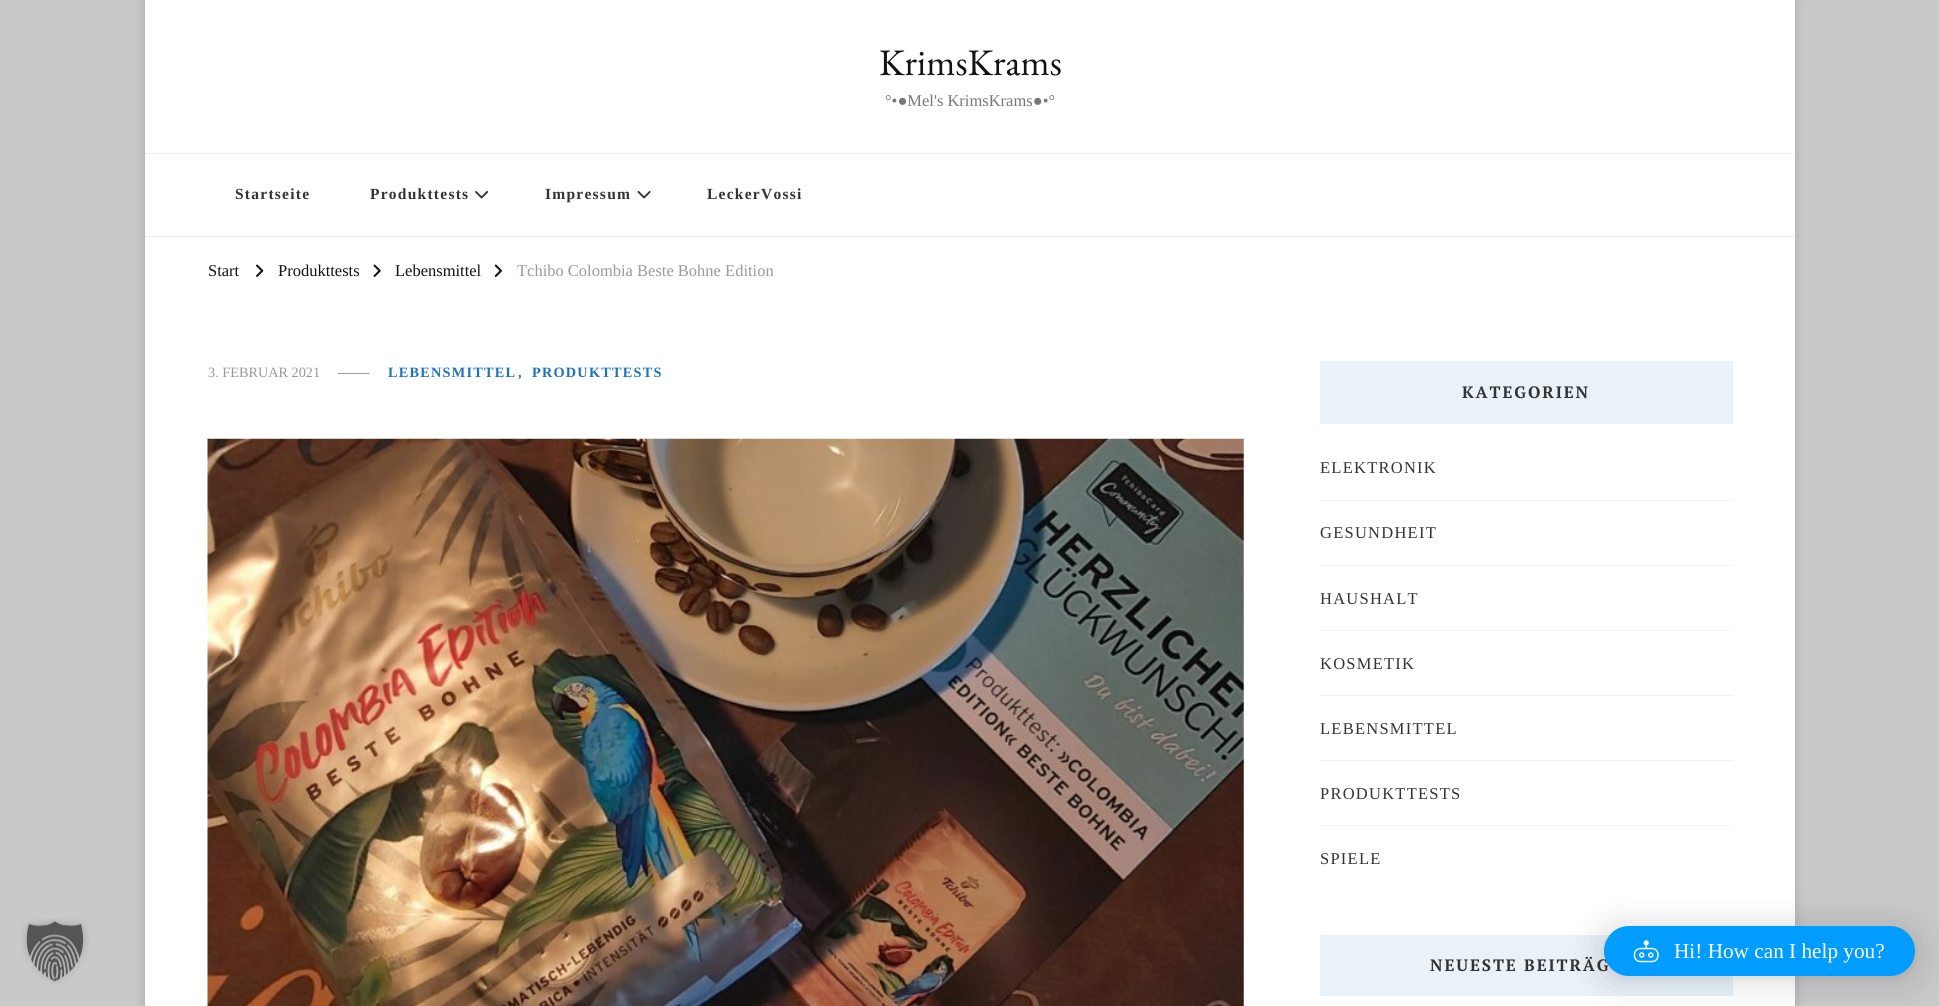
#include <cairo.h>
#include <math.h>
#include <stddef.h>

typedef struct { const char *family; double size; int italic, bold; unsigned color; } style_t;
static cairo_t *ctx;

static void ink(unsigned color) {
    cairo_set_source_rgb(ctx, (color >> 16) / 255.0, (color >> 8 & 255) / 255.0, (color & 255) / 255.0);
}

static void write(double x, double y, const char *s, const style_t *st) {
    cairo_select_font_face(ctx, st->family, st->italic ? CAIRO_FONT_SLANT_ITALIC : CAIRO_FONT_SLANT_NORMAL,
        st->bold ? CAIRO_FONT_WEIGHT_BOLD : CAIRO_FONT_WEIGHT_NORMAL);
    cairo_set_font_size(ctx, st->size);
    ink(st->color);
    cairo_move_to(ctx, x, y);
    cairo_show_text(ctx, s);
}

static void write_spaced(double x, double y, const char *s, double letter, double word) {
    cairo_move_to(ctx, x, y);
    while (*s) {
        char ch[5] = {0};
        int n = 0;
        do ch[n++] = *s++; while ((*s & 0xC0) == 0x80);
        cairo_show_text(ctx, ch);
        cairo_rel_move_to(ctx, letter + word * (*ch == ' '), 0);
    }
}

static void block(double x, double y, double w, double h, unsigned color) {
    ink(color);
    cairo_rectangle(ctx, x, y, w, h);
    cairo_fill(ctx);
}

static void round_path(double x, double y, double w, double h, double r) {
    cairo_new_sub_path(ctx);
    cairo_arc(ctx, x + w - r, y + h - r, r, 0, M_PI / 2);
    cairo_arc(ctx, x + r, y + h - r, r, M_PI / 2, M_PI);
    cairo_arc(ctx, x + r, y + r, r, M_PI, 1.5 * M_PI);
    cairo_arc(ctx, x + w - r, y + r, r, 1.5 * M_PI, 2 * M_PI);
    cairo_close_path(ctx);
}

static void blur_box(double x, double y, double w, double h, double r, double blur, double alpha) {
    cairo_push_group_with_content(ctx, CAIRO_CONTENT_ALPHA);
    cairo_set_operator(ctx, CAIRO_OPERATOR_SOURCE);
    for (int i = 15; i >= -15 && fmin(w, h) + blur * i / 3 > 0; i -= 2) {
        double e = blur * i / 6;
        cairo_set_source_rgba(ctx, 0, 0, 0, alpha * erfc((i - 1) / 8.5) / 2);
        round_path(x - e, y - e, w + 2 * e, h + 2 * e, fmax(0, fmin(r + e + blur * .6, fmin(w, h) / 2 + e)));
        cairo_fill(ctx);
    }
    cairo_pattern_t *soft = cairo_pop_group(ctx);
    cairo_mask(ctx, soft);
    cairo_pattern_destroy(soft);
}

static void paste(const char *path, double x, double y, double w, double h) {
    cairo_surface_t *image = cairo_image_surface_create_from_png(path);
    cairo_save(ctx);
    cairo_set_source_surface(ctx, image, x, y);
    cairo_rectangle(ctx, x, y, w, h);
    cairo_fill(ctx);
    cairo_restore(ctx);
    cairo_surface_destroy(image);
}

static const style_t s1 = {"EB Garamond", 37.5, 0, 0, 0x121212};
static const style_t s2 = {"Liberation Serif", 16.5, 0, 0, 0x777777};
static const style_t s3 = {"Liberation Serif", 16.5, 0, 0, 0x121212};
static const style_t s4 = {"Liberation Serif", 16.5, 0, 0, 0x999999};
static const style_t s5 = {"Liberation Serif", 14.25, 0, 0, 0x999999};
static const style_t s6 = {"Liberation Serif", 21.25, 0, 0, 0xffffff};

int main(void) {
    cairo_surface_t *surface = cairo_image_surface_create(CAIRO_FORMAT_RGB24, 1939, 1006);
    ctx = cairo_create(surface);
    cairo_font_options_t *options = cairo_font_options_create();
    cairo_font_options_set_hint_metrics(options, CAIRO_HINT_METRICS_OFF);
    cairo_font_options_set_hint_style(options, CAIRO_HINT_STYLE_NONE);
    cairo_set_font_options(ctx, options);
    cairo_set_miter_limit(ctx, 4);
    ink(0xc9c9c9);
    cairo_paint(ctx);
    paste("pic1.png", 21, 918, 68, 66);
    ink(0x000000);
    blur_box(145, 0, 1650, 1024, 0, 6, 0.16);
    block(145, 0, 1650, 1006, 0xffffff);
    write(879, 75, "KrimsKrams", &s1);
    write(885, 106, "°•●Mel's KrimsKrams●•°", &s2);
    block(145, 153, 1650, 1, 0xededed);
    block(145, 236, 1650, 1, 0xededed);
    cairo_select_font_face(ctx, "Liberation Serif", CAIRO_FONT_SLANT_NORMAL, CAIRO_FONT_WEIGHT_BOLD);
    cairo_set_font_size(ctx, 15.5);
    ink(0x333333);
    write_spaced(235, 199, "Startseite", 1.25, 0);
    write_spaced(370, 199, "Produkttests", 1.25, 0);
    paste("pic2.png", 475, 191, 14, 8);
    write_spaced(545, 199, "Impressum", 1.25, 0);
    paste("pic3.png", 637, 191, 14, 8);
    write_spaced(707, 199, "LeckerVossi", 1.25, 0);
    write(208, 276, "Start", &s3);
    paste("pic4.png", 256, 264, 8, 13);
    write(278, 276, "Produkttests", &s3);
    paste("pic5.png", 373, 264, 8, 13);
    write(395, 276, "Lebensmittel", &s3);
    paste("pic6.png", 494, 264, 8, 13);
    write(517, 276, "Tchibo Colombia Beste Bohne Edition", &s4);
    write(208, 377, "3. FEBRUAR 2021", &s5);
    block(338, 373, 31, 1, 0x999999);
    cairo_select_font_face(ctx, "Liberation Serif", CAIRO_FONT_SLANT_NORMAL, CAIRO_FONT_WEIGHT_BOLD);
    ink(0x1e73be);
    write_spaced(388, 377, "LEBENSMITTEL", 1.25, 0);
    write_spaced(518, 377, ",", 1.25, 0);
    write_spaced(532, 377, "PRODUKTTESTS", 1.25, 0);
    paste("pic7.png", 207, 438, 1037, 568);
    block(1320, 361, 413, 63, 0xe9f1f9);
    cairo_select_font_face(ctx, "PT Serif", CAIRO_FONT_SLANT_NORMAL, CAIRO_FONT_WEIGHT_BOLD);
    cairo_set_font_size(ctx, 16.5);
    ink(0x333333);
    write_spaced(1462, 398, "KATEGORIEN", 1.9, 0);
    block(1320, 500, 413, 1, 0xf2f2f2);
    cairo_select_font_face(ctx, "Liberation Serif", CAIRO_FONT_SLANT_NORMAL, CAIRO_FONT_WEIGHT_NORMAL);
    ink(0x333333);
    write_spaced(1320, 473, "ELEKTRONIK", 1.25, 0);
    block(1320, 565, 413, 1, 0xf2f2f2);
    ink(0x333333);
    write_spaced(1320, 538, "GESUNDHEIT", 1.25, 0);
    block(1320, 630, 413, 1, 0xf2f2f2);
    ink(0x333333);
    write_spaced(1320, 604, "HAUSHALT", 1.25, 0);
    block(1320, 695, 413, 1, 0xf2f2f2);
    ink(0x333333);
    write_spaced(1320, 669, "KOSMETIK", 1.25, 0);
    block(1320, 760, 413, 1, 0xf2f2f2);
    ink(0x333333);
    write_spaced(1320, 734, "LEBENSMITTEL", 1.25, 0);
    block(1320, 825, 413, 1, 0xf2f2f2);
    ink(0x333333);
    write_spaced(1320, 799, "PRODUKTTESTS", 1.25, 0);
    write_spaced(1320, 864, "SPIELE", 1.25, 0);
    block(1320, 935, 413, 61, 0xe9f1f9);
    cairo_select_font_face(ctx, "PT Serif", CAIRO_FONT_SLANT_NORMAL, CAIRO_FONT_WEIGHT_BOLD);
    ink(0x333333);
    write_spaced(1430, 971, "NEUESTE BEITRÄG", 1.9, 0);
    ink(0x000000);
    blur_box(1604, 929, 311, 50, 25, 20, 0.16);
    blur_box(1604, 928, 311, 50, 25, 4, 0.06);
    ink(0x009cff);
    round_path(1604, 926, 311, 50, 25);
    cairo_fill(ctx);
    paste("pic8.png", 1633, 940, 26, 23);
    write(1674, 958, "Hi! How can I help you?", &s6);
    cairo_surface_write_to_png(surface, "screenshot.png");
    cairo_font_options_destroy(options);
    cairo_destroy(ctx);
    cairo_surface_destroy(surface);
    return 0;
}
